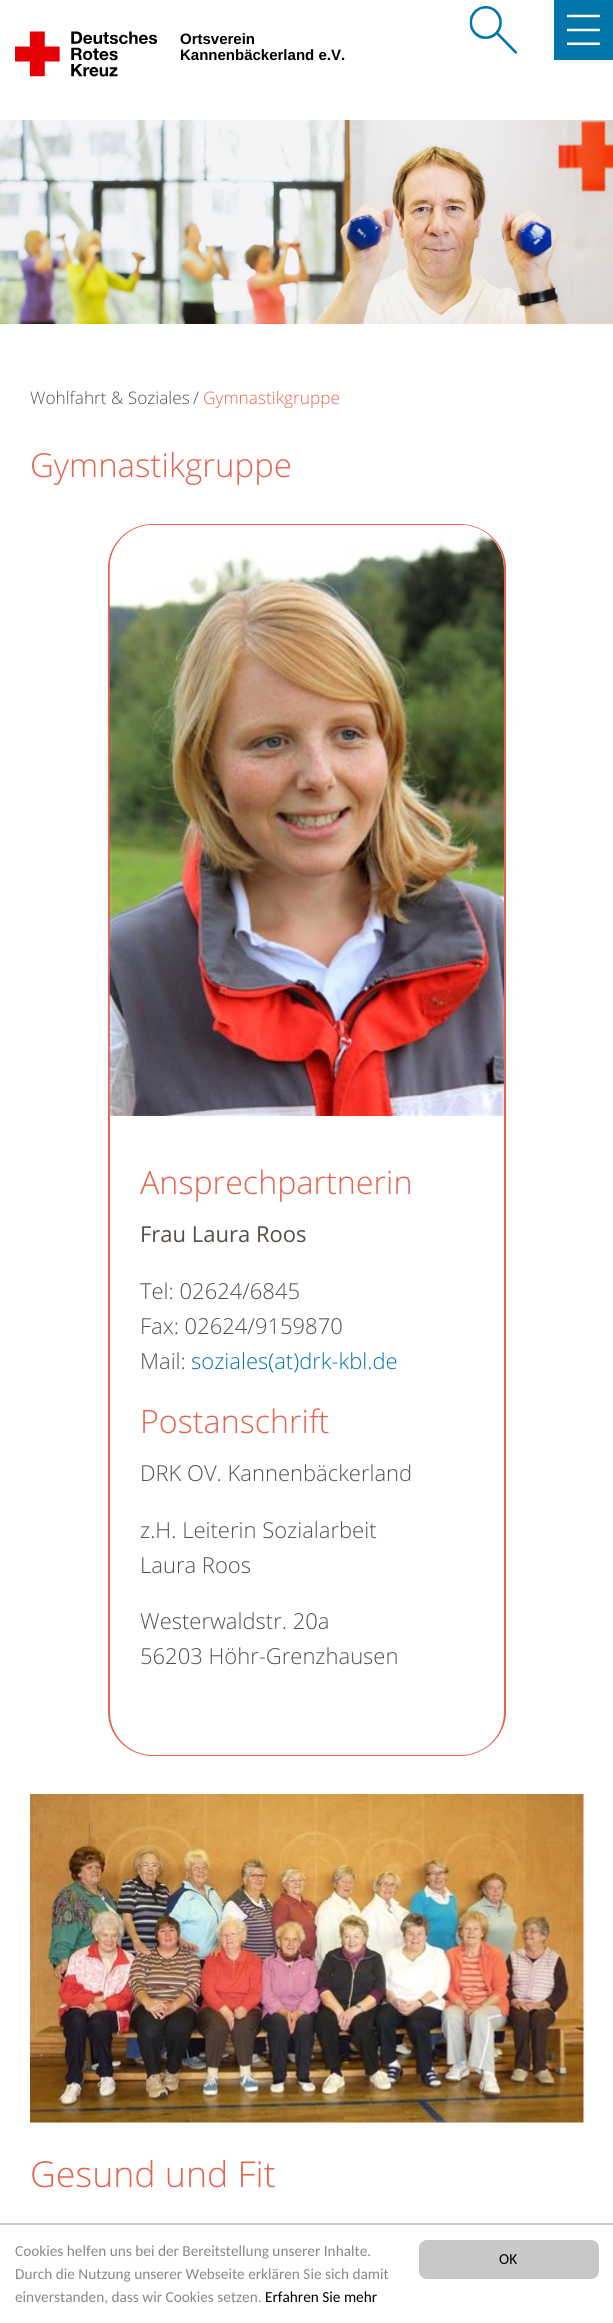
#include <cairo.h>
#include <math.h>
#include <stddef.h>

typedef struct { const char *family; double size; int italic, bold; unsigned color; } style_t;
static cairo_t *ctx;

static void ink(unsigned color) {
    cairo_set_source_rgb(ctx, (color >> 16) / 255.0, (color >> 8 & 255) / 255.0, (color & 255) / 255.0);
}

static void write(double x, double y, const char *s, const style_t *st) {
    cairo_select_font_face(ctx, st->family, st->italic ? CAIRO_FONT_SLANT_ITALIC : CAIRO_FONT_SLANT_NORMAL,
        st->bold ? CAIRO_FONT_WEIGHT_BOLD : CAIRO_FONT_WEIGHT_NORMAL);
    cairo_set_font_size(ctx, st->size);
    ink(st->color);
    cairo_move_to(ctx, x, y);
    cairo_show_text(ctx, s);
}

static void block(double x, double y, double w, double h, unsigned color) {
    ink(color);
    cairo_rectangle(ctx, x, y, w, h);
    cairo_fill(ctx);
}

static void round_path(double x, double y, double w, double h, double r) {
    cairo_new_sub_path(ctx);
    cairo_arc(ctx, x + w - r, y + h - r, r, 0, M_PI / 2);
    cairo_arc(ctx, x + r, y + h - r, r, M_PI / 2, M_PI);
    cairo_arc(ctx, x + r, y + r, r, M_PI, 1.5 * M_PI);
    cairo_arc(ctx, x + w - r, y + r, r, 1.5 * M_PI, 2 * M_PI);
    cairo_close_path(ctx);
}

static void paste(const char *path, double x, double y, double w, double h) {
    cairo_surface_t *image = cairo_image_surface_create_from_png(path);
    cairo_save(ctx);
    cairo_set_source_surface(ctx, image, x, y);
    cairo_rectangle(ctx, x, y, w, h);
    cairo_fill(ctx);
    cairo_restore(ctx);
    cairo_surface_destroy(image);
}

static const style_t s1 = {"Liberation Sans", 15, 0, 1, 0x000000};
static const style_t s2 = {"Open Sans Light", 17.25, 0, 0, 0x554f4a};
static const style_t s3 = {"Open Sans Light", 17.25, 0, 0, 0xe46450};
static const style_t s4 = {"Open Sans Light", 33, 0, 0, 0xe46450};
static const style_t s5 = {"Open Sans Light", 32.25, 0, 0, 0xe46450};
static const style_t s6 = {"Open Sans", 22, 0, 0, 0x554f4a};
static const style_t s7 = {"Open Sans Light", 22, 0, 0, 0x554f4a};
static const style_t s8 = {"Open Sans Light", 22, 0, 0, 0x0075a9};
static const style_t s9 = {"Open Sans Light", 35.75, 0, 0, 0xe46450};
static const style_t s10 = {"Carlito", 15.3, 0, 0, 0x888888};
static const style_t s11 = {"Carlito", 15.3, 0, 0, 0x000000};

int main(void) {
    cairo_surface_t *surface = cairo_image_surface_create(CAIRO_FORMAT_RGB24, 613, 2323);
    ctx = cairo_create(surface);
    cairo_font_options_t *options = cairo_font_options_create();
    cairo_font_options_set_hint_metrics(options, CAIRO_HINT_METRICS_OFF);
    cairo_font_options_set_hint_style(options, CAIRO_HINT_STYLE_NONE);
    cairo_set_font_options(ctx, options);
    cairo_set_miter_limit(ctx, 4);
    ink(0xffffff);
    cairo_paint(ctx);
    paste("pic1.png", 15, 31, 142, 46);
    write(180, 44, "Ortsverein", &s1);
    write(180, 60, "Kannenbäckerland e.V.", &s1);
    block(554, 0, 59, 60, 0x0075a9);
    paste("pic2.png", 567, 14, 33, 31);
    paste("pic3.png", 469, 6, 49, 48);
    paste("pic4.png", 0, 120, 613, 204);
    write(30, 404, "Wohlfahrt & Soziales", &s2);
    write(193, 404, "/", &s2);
    write(203, 404, "Gymnastikgruppe", &s3);
    write(30, 477, "Gymnastikgruppe", &s4);
    cairo_set_fill_rule(ctx, CAIRO_FILL_RULE_EVEN_ODD);
    cairo_new_path(ctx);
    cairo_move_to(ctx, 153, 524);
    cairo_line_to(ctx, 460, 524);
    cairo_curve_to(ctx, 485, 524, 506, 544, 506, 568);
    cairo_line_to(ctx, 506, 1712);
    cairo_line_to(ctx, 108, 1712);
    cairo_line_to(ctx, 108, 568);
    cairo_curve_to(ctx, 108, 544, 128, 524, 153, 524);
    cairo_close_path(ctx);
    cairo_move_to(ctx, 153, 525);
    cairo_line_to(ctx, 460, 525);
    cairo_curve_to(ctx, 485, 525, 504, 544, 504, 568);
    cairo_line_to(ctx, 504, 1712);
    cairo_line_to(ctx, 110, 1712);
    cairo_line_to(ctx, 110, 568);
    cairo_curve_to(ctx, 110, 544, 129, 525, 153, 525);
    cairo_close_path(ctx);
    cairo_fill(ctx);
    paste("pic5.png", 109, 525, 395, 591);
    write(140, 1194, "Ansprechpartnerin", &s5);
    write(140, 1242, "Frau Laura Roos", &s6);
    write(140, 1299, "Tel: 02624/6845", &s7);
    write(140, 1334, "Fax: 02624/9159870", &s7);
    write(140, 1369, "Mail:", &s7);
    write(191, 1369, "soziales(at)drk-kbl.de", &s8);
    write(140, 1433, "Postanschrift", &s5);
    write(140, 1481, "DRK OV. Kannenbäckerland", &s7);
    write(140, 1538, "z.H. Leiterin Sozialarbeit", &s7);
    write(140, 1573, "Laura Roos", &s7);
    write(140, 1629, "Westerwaldstr. 20a", &s7);
    write(140, 1664, "56203 Höhr-Grenzhausen", &s7);
    ink(0xe46450);
    cairo_new_path(ctx);
    cairo_move_to(ctx, 108, 1712);
    cairo_line_to(ctx, 506, 1712);
    cairo_curve_to(ctx, 506, 1736, 485, 1756, 460, 1756);
    cairo_line_to(ctx, 153, 1756);
    cairo_curve_to(ctx, 128, 1756, 108, 1736, 108, 1712);
    cairo_close_path(ctx);
    cairo_move_to(ctx, 110, 1712);
    cairo_line_to(ctx, 504, 1712);
    cairo_curve_to(ctx, 504, 1736, 485, 1755, 460, 1755);
    cairo_line_to(ctx, 153, 1755);
    cairo_curve_to(ctx, 129, 1755, 110, 1736, 110, 1712);
    cairo_close_path(ctx);
    cairo_fill(ctx);
    paste("pic6.png", 30, 1794, 554, 329);
    write(30, 2187, "Gesund und Fit", &s9);
    block(0, 2223, 613, 2, 0xcccccc);
    write(15, 2256, "Cookies helfen uns bei der Bereitstellung unserer Inhalte.", &s10);
    write(15, 2279, "Durch die Nutzung unserer Webseite erklären Sie sich damit", &s10);
    write(15, 2302, "einverstanden, dass wir Cookies setzen.", &s10);
    write(265, 2302, "Erfahren Sie mehr", &s11);
    ink(0xc8c8c8);
    round_path(419, 2240, 180, 39, 8);
    cairo_fill(ctx);
    write(499, 2264, "OK", &s11);
    cairo_surface_write_to_png(surface, "screenshot.png");
    cairo_font_options_destroy(options);
    cairo_destroy(ctx);
    cairo_surface_destroy(surface);
    return 0;
}
